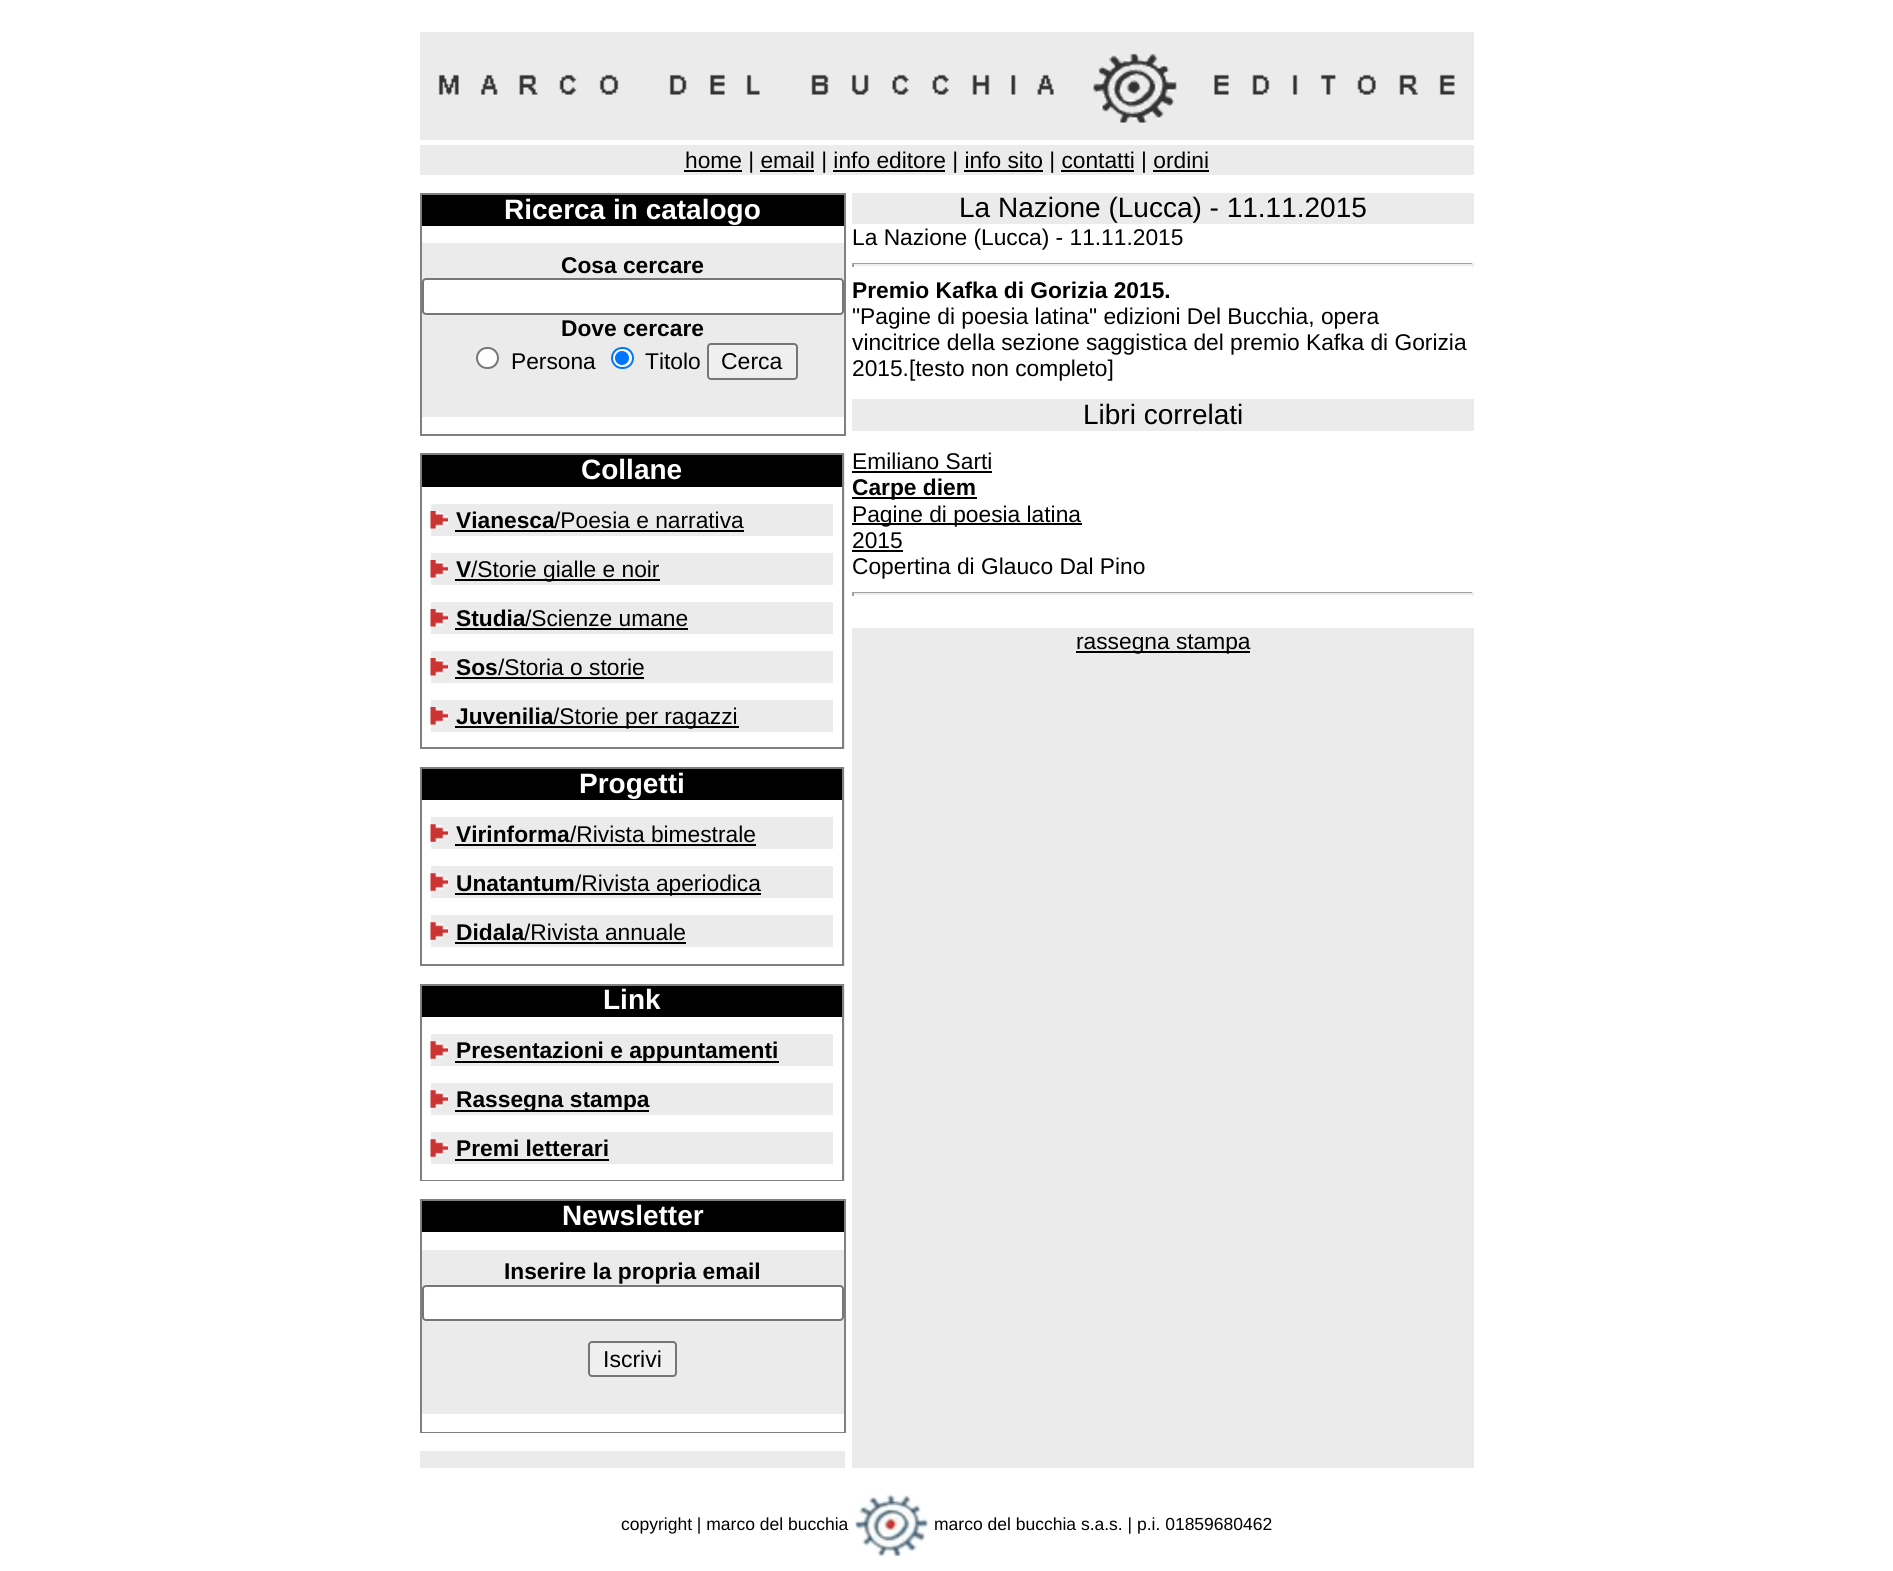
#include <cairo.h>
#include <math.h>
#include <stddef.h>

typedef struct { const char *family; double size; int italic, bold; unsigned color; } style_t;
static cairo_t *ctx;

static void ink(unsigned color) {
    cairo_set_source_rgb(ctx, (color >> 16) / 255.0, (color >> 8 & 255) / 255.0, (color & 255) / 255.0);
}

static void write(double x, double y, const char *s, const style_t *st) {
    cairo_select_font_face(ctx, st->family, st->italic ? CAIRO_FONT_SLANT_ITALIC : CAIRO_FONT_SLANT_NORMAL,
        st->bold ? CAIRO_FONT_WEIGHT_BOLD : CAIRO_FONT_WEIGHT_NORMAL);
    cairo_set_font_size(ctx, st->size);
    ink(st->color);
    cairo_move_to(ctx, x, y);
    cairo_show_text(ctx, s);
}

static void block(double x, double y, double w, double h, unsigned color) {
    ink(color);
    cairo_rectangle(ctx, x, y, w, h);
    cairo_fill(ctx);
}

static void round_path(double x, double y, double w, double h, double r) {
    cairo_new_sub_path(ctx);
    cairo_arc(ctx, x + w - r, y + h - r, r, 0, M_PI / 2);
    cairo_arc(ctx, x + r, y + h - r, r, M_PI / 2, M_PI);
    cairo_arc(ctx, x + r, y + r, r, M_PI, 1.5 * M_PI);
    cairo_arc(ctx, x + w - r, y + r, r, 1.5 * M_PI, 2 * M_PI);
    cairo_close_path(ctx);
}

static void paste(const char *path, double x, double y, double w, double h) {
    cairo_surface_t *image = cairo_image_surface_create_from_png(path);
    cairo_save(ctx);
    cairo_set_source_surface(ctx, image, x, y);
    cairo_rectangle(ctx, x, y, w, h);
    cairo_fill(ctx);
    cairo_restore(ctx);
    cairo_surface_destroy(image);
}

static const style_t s1 = {"Liberation Sans", 22.75, 0, 0, 0x000000};
static const style_t s2 = {"Liberation Sans", 28, 0, 1, 0xffffff};
static const style_t s3 = {"Liberation Sans", 22.75, 0, 1, 0x000000};
static const style_t s4 = {"Liberation Sans", 23, 0, 0, 0x000000};
static const style_t s5 = {"Liberation Sans", 28, 0, 0, 0x000000};
static const style_t s6 = {"Liberation Sans", 17.5, 0, 0, 0x000000};

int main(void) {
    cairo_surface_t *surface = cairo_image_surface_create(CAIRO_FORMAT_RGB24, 1893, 1571);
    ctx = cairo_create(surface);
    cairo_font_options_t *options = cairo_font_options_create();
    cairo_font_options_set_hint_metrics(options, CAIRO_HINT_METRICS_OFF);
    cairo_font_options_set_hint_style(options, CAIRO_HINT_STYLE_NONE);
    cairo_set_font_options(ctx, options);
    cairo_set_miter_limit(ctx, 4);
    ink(0xffffff);
    cairo_paint(ctx);
    block(420, 32, 1054, 108, 0xebebeb);
    paste("pic1.png", 438, 53, 1017, 70);
    block(420, 145, 1054, 30, 0xebebeb);
    block(684, 170, 58, 2, 0x000000);
    write(685, 168, "home | email | info editore | info sito | contatti | ordini", &s1);
    block(760, 170, 54, 2, 0x000000);
    block(833, 170, 112, 2, 0x000000);
    block(964, 170, 79, 2, 0x000000);
    block(1061, 170, 73, 2, 0x000000);
    block(1153, 170, 56, 2, 0x000000);
    block(420, 243, 425, 1225, 0xebebeb);
    block(420, 193, 425, 2, 0x808080);
    block(844, 193, 2, 243, 0x808080);
    block(420, 434, 425, 2, 0x808080);
    block(420, 193, 2, 243, 0x808080);
    block(422, 195, 422, 31, 0x000000);
    write(504, 219, "Ricerca in catalogo", &s2);
    write(561, 273, "Cosa cercare", &s3);
    ink(0xffffff);
    round_path(423, 279, 420, 35, 3);
    cairo_fill_preserve(ctx);
    ink(0x767676);
    cairo_stroke(ctx);
    write(561, 336, "Dove cercare", &s3);
    ink(0xffffff);
    round_path(477, 348, 21, 20, 10);
    cairo_fill_preserve(ctx);
    ink(0x767676);
    cairo_stroke(ctx);
    write(511, 369, "Persona", &s1);
    ink(0xffffff);
    round_path(612, 348, 21, 20, 10);
    cairo_fill_preserve(ctx);
    ink(0x0075ff);
    cairo_stroke(ctx);
    cairo_arc(ctx, 622, 358, 7, 0, 2 * M_PI);
    cairo_fill(ctx);
    write(645, 369, "Titolo", &s1);
    ink(0xefefef);
    round_path(708, 344, 89, 35, 3);
    cairo_fill_preserve(ctx);
    ink(0x767676);
    cairo_stroke(ctx);
    write(721, 369, "Cerca", &s4);
    block(422, 417, 422, 17, 0xffffff);
    block(420, 436, 425, 17, 0xffffff);
    block(422, 487, 420, 260, 0xffffff);
    block(420, 453, 424, 2, 0x808080);
    block(842, 453, 2, 296, 0x808080);
    block(420, 747, 424, 2, 0x808080);
    block(420, 453, 2, 296, 0x808080);
    block(422, 455, 420, 32, 0x000000);
    write(581, 479, "Collane", &s2);
    block(431, 504, 402, 32, 0xebebeb);
    paste("pic2.png", 430, 511, 18, 18);
    write(456, 528, "Vianesca", &s3);
    block(455, 530, 289, 2, 0x000000);
    write(554, 528, "/Poesia e narrativa", &s1);
    block(431, 553, 402, 32, 0xebebeb);
    paste("pic2.png", 430, 560, 18, 18);
    write(456, 577, "V", &s3);
    block(455, 579, 205, 2, 0x000000);
    write(471, 577, "/Storie gialle e noir", &s1);
    block(431, 602, 402, 32, 0xebebeb);
    paste("pic2.png", 430, 609, 18, 18);
    write(456, 626, "Studia", &s3);
    block(455, 628, 233, 2, 0x000000);
    write(525, 626, "/Scienze umane", &s1);
    block(431, 651, 402, 32, 0xebebeb);
    paste("pic2.png", 430, 658, 18, 18);
    write(456, 675, "Sos", &s3);
    block(455, 677, 189, 2, 0x000000);
    write(498, 675, "/Storia o storie", &s1);
    block(431, 700, 402, 32, 0xebebeb);
    paste("pic2.png", 430, 707, 18, 18);
    write(456, 724, "Juvenilia", &s3);
    block(455, 726, 284, 2, 0x000000);
    write(553, 724, "/Storie per ragazzi", &s1);
    block(420, 749, 425, 18, 0xffffff);
    block(422, 800, 420, 164, 0xffffff);
    block(420, 767, 424, 2, 0x808080);
    block(842, 767, 2, 199, 0x808080);
    block(420, 964, 424, 2, 0x808080);
    block(420, 767, 2, 199, 0x808080);
    block(422, 769, 420, 31, 0x000000);
    write(579, 793, "Progetti", &s2);
    block(431, 817, 402, 32, 0xebebeb);
    paste("pic3.png", 430, 824, 18, 18);
    write(456, 842, "Virinforma", &s3);
    block(455, 844, 301, 2, 0x000000);
    write(570, 842, "/Rivista bimestrale", &s1);
    block(431, 866, 402, 32, 0xebebeb);
    paste("pic3.png", 430, 873, 18, 18);
    write(456, 891, "Unatantum", &s3);
    block(455, 893, 306, 2, 0x000000);
    write(575, 891, "/Rivista aperiodica", &s1);
    block(431, 915, 402, 32, 0xebebeb);
    paste("pic3.png", 430, 922, 18, 18);
    write(456, 940, "Didala", &s3);
    block(455, 942, 231, 2, 0x000000);
    write(524, 940, "/Rivista annuale", &s1);
    block(420, 966, 425, 18, 0xffffff);
    block(422, 1017, 420, 163, 0xffffff);
    block(420, 984, 424, 2, 0x808080);
    block(842, 984, 2, 197, 0x808080);
    block(420, 1180, 424, 1, 0x808080);
    block(420, 984, 2, 197, 0x808080);
    block(422, 986, 420, 31, 0x000000);
    write(603, 1009, "Link", &s2);
    block(431, 1034, 402, 32, 0xebebeb);
    paste("pic3.png", 430, 1041, 18, 18);
    block(455, 1061, 324, 2, 0x000000);
    write(456, 1058, "Presentazioni e appuntamenti", &s3);
    block(431, 1083, 402, 32, 0xebebeb);
    paste("pic3.png", 430, 1090, 18, 18);
    block(455, 1110, 194, 2, 0x000000);
    write(456, 1107, "Rassegna stampa", &s3);
    block(431, 1132, 402, 32, 0xebebeb);
    paste("pic3.png", 430, 1139, 18, 18);
    write(456, 1156, "Premi letterari", &s3);
    block(455, 1159, 154, 2, 0x000000);
    block(420, 1181, 425, 18, 0xffffff);
    block(422, 1232, 422, 200, 0xffffff);
    block(420, 1199, 425, 2, 0x808080);
    block(844, 1199, 2, 234, 0x808080);
    block(420, 1432, 425, 1, 0x808080);
    block(420, 1199, 2, 234, 0x808080);
    block(422, 1201, 422, 31, 0x000000);
    write(562, 1225, "Newsletter", &s2);
    block(422, 1250, 422, 164, 0xebebeb);
    write(504, 1279, "Inserire la propria email", &s3);
    ink(0xffffff);
    round_path(423, 1286, 420, 34, 3);
    cairo_fill_preserve(ctx);
    ink(0x767676);
    cairo_stroke(ctx);
    ink(0xefefef);
    round_path(589, 1342, 87, 34, 3);
    cairo_fill_preserve(ctx);
    ink(0x767676);
    cairo_stroke(ctx);
    write(603, 1367, "Iscrivi", &s4);
    block(420, 1433, 425, 18, 0xffffff);
    block(852, 628, 622, 840, 0xebebeb);
    block(852, 193, 622, 31, 0xebebeb);
    write(959, 217, "La Nazione (Lucca) - 11.11.2015", &s5);
    write(852, 245, "La Nazione (Lucca) - 11.11.2015", &s1);
    block(852, 263, 622, 1, 0x9f9f9f);
    block(1472, 263, 2, 4, 0xeeeeee);
    block(852, 264, 622, 2, 0xeeeeee);
    block(852, 263, 2, 4, 0x9f9f9f);
    write(852, 298, "Premio Kafka di Gorizia 2015.", &s3);
    write(852, 324, "\"Pagine di poesia latina\" edizioni Del Bucchia, opera", &s1);
    write(852, 350, "vincitrice della sezione saggistica del premio Kafka di Gorizia", &s1);
    write(852, 376, "2015.[testo non completo]", &s1);
    block(852, 399, 622, 32, 0xebebeb);
    write(1083, 424, "Libri correlati", &s5);
    write(852, 469, "Emiliano Sarti", &s1);
    block(852, 471, 140, 2, 0x000000);
    block(852, 497, 125, 2, 0x000000);
    write(852, 495, "Carpe diem", &s3);
    block(852, 523, 230, 2, 0x000000);
    write(852, 522, "Pagine di poesia latina", &s1);
    write(852, 548, "2015", &s1);
    block(852, 550, 51, 2, 0x000000);
    write(852, 574, "Copertina di Glauco Dal Pino", &s1);
    block(852, 592, 622, 1, 0x9f9f9f);
    block(1472, 592, 2, 4, 0xeeeeee);
    block(852, 593, 622, 2, 0xeeeeee);
    block(852, 592, 2, 4, 0x9f9f9f);
    block(1076, 651, 174, 2, 0x000000);
    write(1076, 649, "rassegna stampa", &s1);
    write(621, 1530, "copyright | marco del bucchia", &s6);
    paste("pic4.png", 855, 1494, 73, 62);
    write(934, 1530, "marco del bucchia s.a.s. | p.i. 01859680462", &s6);
    cairo_surface_write_to_png(surface, "screenshot.png");
    cairo_font_options_destroy(options);
    cairo_destroy(ctx);
    cairo_surface_destroy(surface);
    return 0;
}
